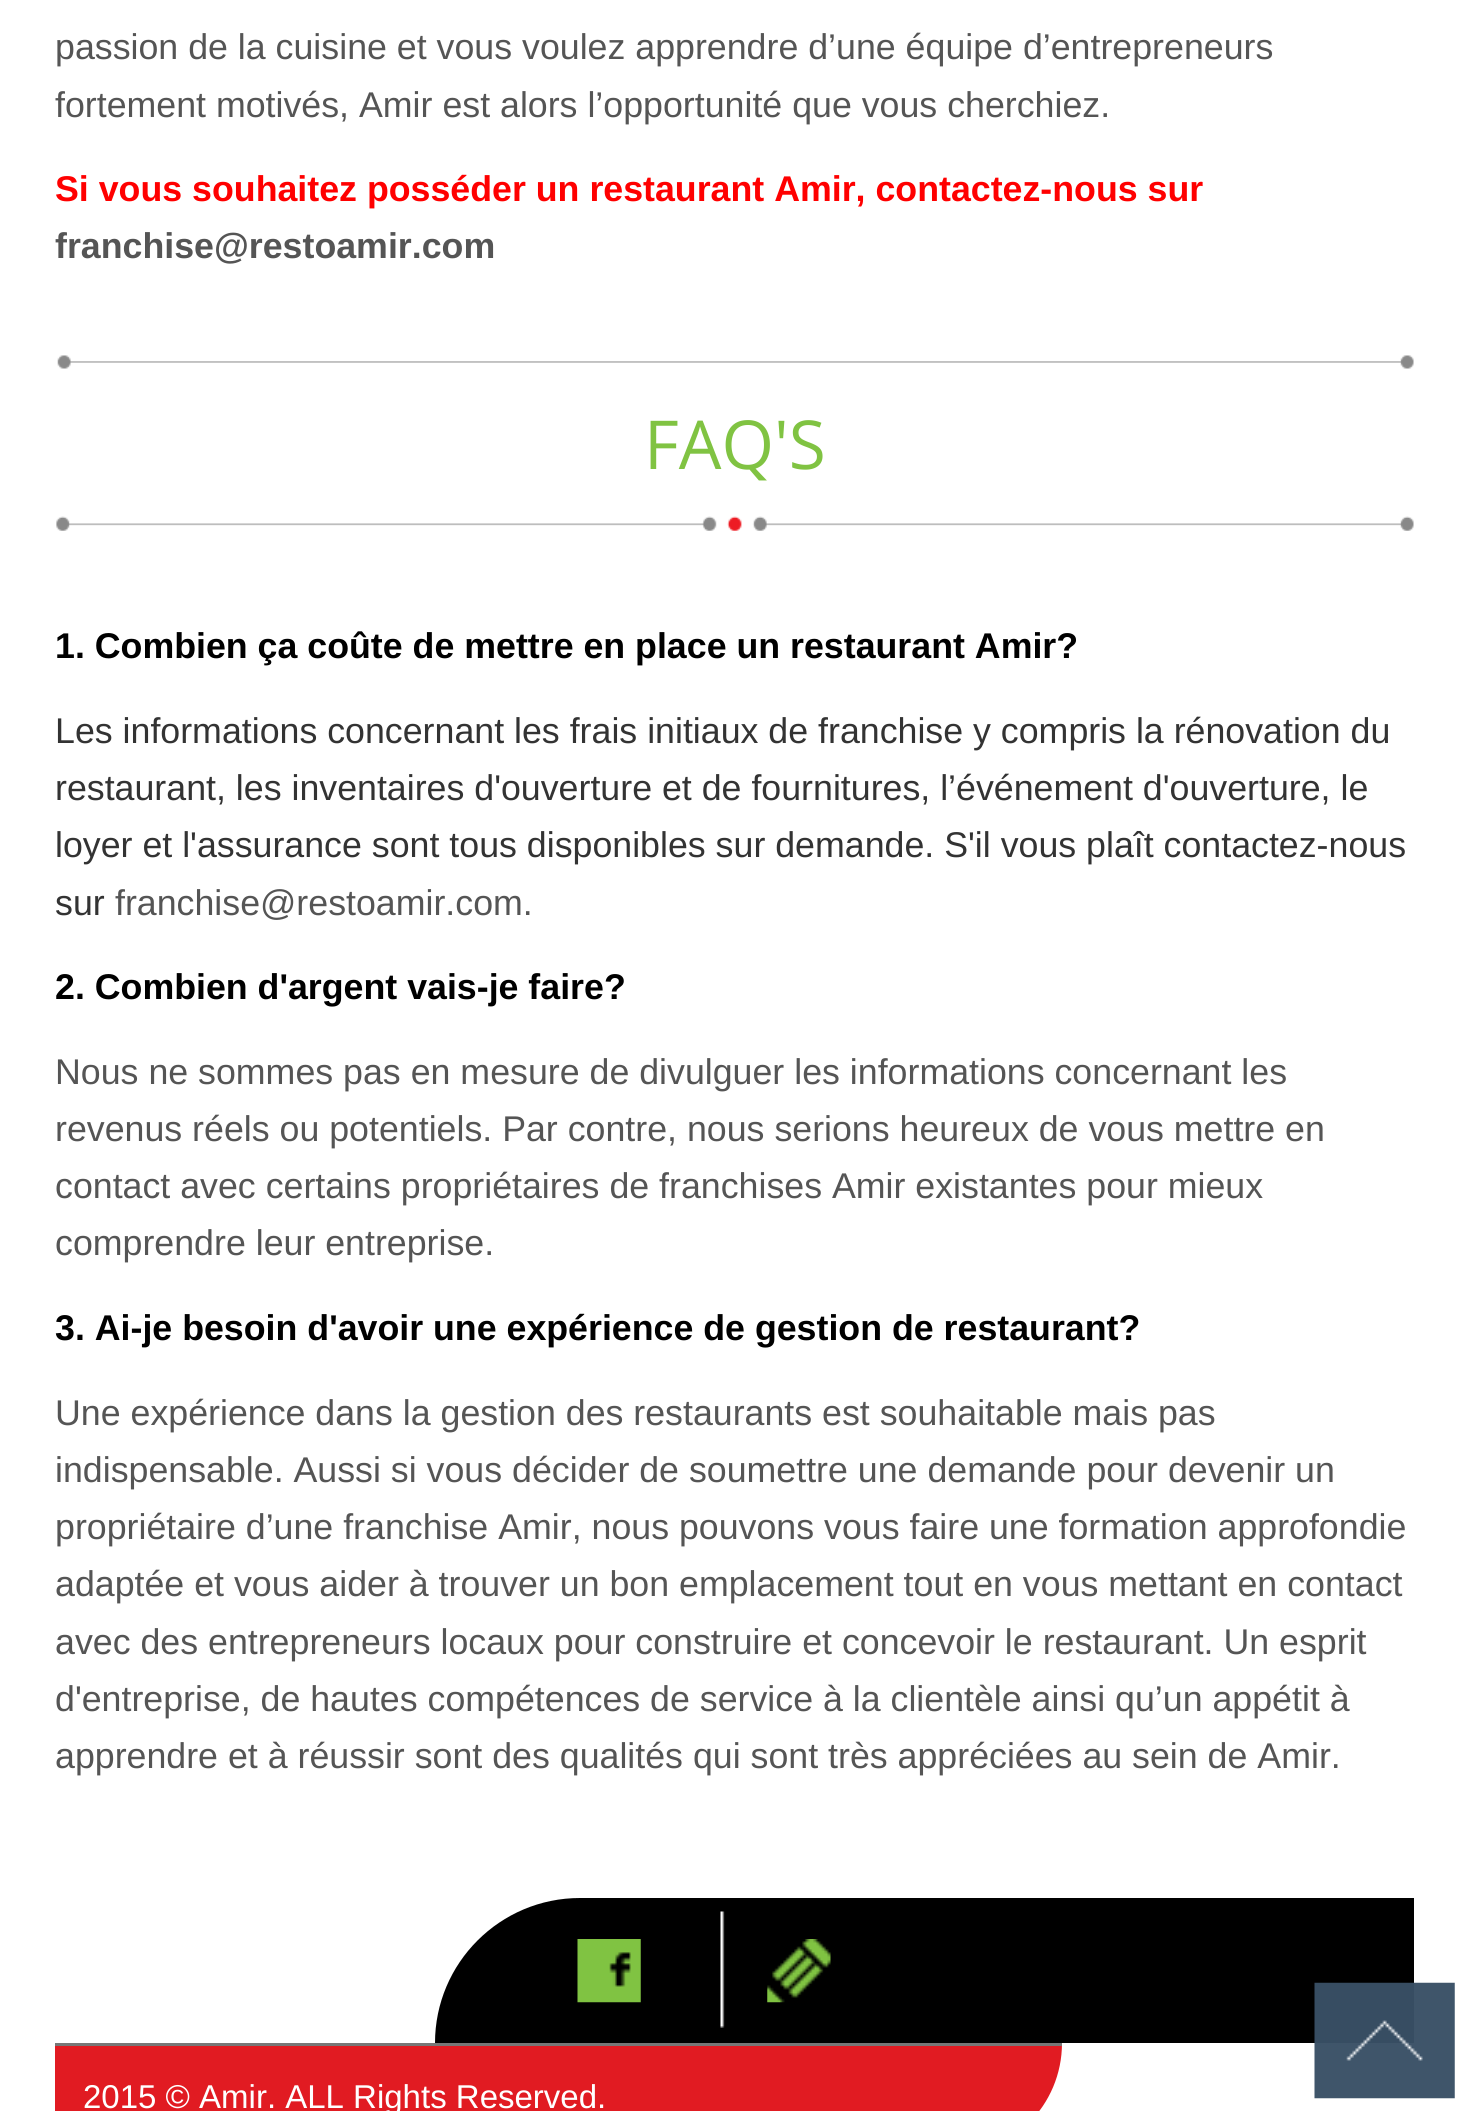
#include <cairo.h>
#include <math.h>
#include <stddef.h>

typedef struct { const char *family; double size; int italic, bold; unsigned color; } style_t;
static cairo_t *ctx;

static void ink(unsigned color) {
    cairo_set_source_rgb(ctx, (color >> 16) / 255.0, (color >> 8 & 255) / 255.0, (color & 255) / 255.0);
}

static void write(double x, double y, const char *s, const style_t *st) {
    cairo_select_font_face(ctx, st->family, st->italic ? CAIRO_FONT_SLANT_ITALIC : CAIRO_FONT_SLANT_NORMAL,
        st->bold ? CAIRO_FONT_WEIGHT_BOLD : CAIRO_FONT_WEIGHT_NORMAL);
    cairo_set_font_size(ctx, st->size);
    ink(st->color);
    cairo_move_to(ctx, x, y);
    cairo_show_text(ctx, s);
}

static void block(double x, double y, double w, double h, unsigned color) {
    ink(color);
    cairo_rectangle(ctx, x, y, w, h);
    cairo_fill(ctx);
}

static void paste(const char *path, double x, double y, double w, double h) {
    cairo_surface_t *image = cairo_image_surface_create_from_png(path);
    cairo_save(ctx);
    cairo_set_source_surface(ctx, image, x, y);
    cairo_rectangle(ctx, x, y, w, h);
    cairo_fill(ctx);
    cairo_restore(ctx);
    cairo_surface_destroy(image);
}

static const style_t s1 = {"Liberation Sans", 35.75, 0, 0, 0x555555};
static const style_t s2 = {"Liberation Sans", 35.75, 0, 1, 0xff0000};
static const style_t s3 = {"Liberation Sans", 35.75, 0, 1, 0x555555};
static const style_t s4 = {"Open Sans", 67.5, 0, 0, 0x80c342};
static const style_t s5 = {"Liberation Sans", 35.75, 0, 1, 0x000000};
static const style_t s6 = {"Liberation Sans", 35.75, 0, 0, 0x333333};
static const style_t s7 = {"Liberation Sans", 33, 0, 0, 0xffffff};

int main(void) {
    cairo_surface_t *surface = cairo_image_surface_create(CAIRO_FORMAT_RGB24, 1467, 2111);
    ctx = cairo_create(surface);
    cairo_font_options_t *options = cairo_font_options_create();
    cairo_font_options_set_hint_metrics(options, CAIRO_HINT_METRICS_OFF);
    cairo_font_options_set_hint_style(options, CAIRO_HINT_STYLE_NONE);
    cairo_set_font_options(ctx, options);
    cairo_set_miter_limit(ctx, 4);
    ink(0xffffff);
    cairo_paint(ctx);
    write(55, 59, "passion de la cuisine et vous voulez apprendre d’une équipe d’entrepreneurs", &s1);
    write(55, 117, "fortement motivés, Amir est alors l’opportunité que vous cherchiez.", &s1);
    write(55, 201, "Si vous souhaitez posséder un restaurant Amir, contactez-nous sur", &s2);
    write(55, 258, "franchise@restoamir.com", &s3);
    paste("pic1.png", 57, 355, 1357, 14);
    write(644, 469, "FAQ'S", &s4);
    paste("pic2.png", 56, 516, 1358, 15);
    write(55, 658, "1. Combien ça coûte de mettre en place un restaurant Amir?", &s5);
    write(55, 743, "Les informations concernant les frais initiaux de franchise y compris la rénovation du", &s6);
    write(55, 800, "restaurant, les inventaires d'ouverture et de fournitures, l’événement d'ouverture, le", &s6);
    write(55, 857, "loyer et l'assurance sont tous disponibles sur demande. S'il vous plaît contactez-nous", &s6);
    write(55, 915, "sur", &s6);
    write(115, 915, "franchise@restoamir.com.", &s1);
    write(55, 999, "2. Combien d'argent vais-je faire?", &s5);
    write(55, 1084, "Nous ne sommes pas en mesure de divulguer les informations concernant les", &s1);
    write(55, 1141, "revenus réels ou potentiels. Par contre, nous serions heureux de vous mettre en", &s1);
    write(55, 1198, "contact avec certains propriétaires de franchises Amir existantes pour mieux", &s1);
    write(55, 1255, "comprendre leur entreprise.", &s1);
    write(55, 1340, "3. Ai-je besoin d'avoir une expérience de gestion de restaurant?", &s5);
    write(55, 1425, "Une expérience dans la gestion des restaurants est souhaitable mais pas", &s1);
    write(55, 1482, "indispensable. Aussi si vous décider de soumettre une demande pour devenir un", &s1);
    write(55, 1539, "propriétaire d’une franchise Amir, nous pouvons vous faire une formation approfondie", &s1);
    write(55, 1596, "adaptée et vous aider à trouver un bon emplacement tout en vous mettant en contact", &s1);
    write(55, 1654, "avec des entrepreneurs locaux pour construire et concevoir le restaurant. Un esprit", &s1);
    write(55, 1711, "d'entreprise, de hautes compétences de service à la clientèle ainsi qu’un appétit à", &s1);
    write(55, 1768, "apprendre et à réussir sont des qualités qui sont très appréciées au sein de Amir.", &s1);
    ink(0x000000);
    cairo_new_path(ctx);
    cairo_move_to(ctx, 580, 1898);
    cairo_line_to(ctx, 1414, 1898);
    cairo_line_to(ctx, 1414, 2043);
    cairo_line_to(ctx, 435, 2043);
    cairo_curve_to(ctx, 435, 1963, 500, 1898, 580, 1898);
    cairo_close_path(ctx);
    cairo_fill(ctx);
    paste("pic3.png", 577, 1939, 64, 64);
    paste("pic4.png", 720, 1911, 5, 117);
    paste("pic5.png", 767, 1939, 64, 64);
    ink(0xe11b22);
    cairo_new_path(ctx);
    cairo_move_to(ctx, 55, 2043);
    cairo_line_to(ctx, 1062, 2043);
    cairo_curve_to(ctx, 1062, 2105.5, 1011.5, 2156, 949, 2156);
    cairo_line_to(ctx, 55, 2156);
    cairo_close_path(ctx);
    cairo_fill(ctx);
    block(55, 2043, 1007, 3, 0x777777);
    write(83, 2108, "2015 © Amir. ALL Rights Reserved.", &s7);
    paste("pic6.png", 1314, 1982, 141, 117);
    cairo_surface_write_to_png(surface, "screenshot.png");
    cairo_font_options_destroy(options);
    cairo_destroy(ctx);
    cairo_surface_destroy(surface);
    return 0;
}
